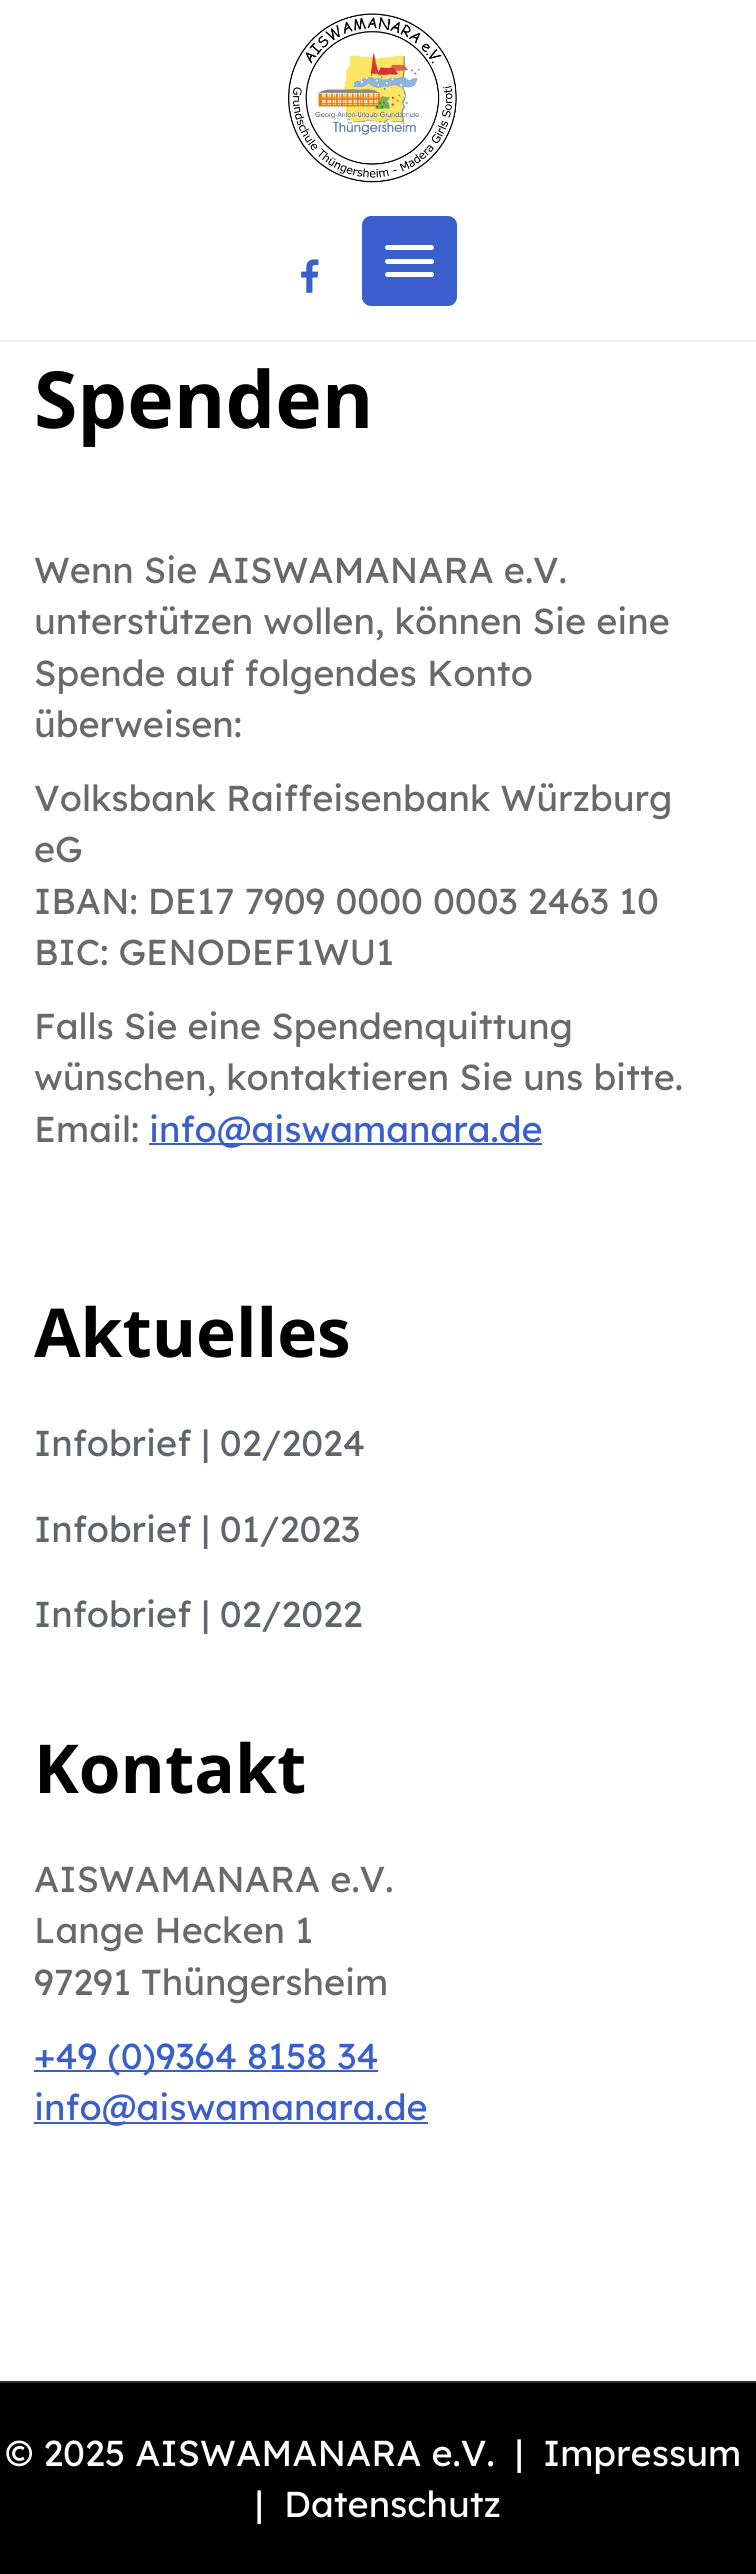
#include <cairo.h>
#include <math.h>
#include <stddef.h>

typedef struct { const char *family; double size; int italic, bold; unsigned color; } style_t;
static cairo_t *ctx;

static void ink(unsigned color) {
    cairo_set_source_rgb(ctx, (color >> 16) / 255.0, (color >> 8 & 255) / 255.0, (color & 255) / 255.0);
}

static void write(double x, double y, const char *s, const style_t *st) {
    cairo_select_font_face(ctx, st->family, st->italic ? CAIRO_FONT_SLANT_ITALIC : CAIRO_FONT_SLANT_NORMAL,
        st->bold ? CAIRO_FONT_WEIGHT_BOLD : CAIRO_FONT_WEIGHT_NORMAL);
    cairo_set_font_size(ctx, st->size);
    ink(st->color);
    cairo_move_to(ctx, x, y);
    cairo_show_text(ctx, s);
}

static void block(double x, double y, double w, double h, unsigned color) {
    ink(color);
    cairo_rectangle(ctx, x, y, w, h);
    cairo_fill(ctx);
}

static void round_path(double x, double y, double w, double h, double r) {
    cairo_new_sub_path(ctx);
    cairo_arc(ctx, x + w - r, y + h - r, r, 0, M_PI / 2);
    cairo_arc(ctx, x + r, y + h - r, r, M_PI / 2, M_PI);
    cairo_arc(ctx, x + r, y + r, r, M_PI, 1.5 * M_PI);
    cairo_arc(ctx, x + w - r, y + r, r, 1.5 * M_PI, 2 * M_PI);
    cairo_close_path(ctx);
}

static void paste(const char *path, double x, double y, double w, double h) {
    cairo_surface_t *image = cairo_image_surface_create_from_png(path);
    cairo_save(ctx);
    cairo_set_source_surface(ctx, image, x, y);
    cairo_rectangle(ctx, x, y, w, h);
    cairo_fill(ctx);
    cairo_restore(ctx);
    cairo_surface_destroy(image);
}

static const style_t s1 = {"Open Sans", 78.75, 0, 1, 0x000000};
static const style_t s2 = {"Lexend", 36, 0, 0, 0x696969};
static const style_t s3 = {"Lexend", 36, 0, 0, 0x3a5fcd};
static const style_t s4 = {"Open Sans", 67.5, 0, 1, 0x000000};
static const style_t s5 = {"Lexend", 36, 0, 0, 0x62646c};
static const style_t s6 = {"Lexend", 36, 0, 0, 0xffffff};

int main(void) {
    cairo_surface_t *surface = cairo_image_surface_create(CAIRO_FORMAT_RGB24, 756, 2574);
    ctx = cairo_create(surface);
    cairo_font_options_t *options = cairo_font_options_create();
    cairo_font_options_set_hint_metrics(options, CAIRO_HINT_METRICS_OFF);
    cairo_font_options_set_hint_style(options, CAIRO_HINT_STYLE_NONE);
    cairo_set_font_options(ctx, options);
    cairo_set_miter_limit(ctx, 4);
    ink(0xffffff);
    cairo_paint(ctx);
    block(0, 340, 756, 2, 0xeeeeee);
    paste("pic1.png", 288, 13, 169, 170);
    paste("pic2.png", 301, 259, 18, 34);
    ink(0x3a5fcd);
    round_path(362, 216, 95, 90, 9);
    cairo_fill(ctx);
    ink(0xffffff);
    round_path(385, 245, 49, 5, 2.5);
    cairo_fill(ctx);
    round_path(385, 259, 49, 5, 2.5);
    cairo_fill(ctx);
    round_path(385, 272, 49, 5, 2.5);
    cairo_fill(ctx);
    write(34, 428, "Spenden", &s1);
    write(34, 583, "Wenn Sie AISWAMANARA e.V.", &s2);
    write(34, 634, "unterstützen wollen, können Sie eine", &s2);
    write(34, 686, "Spende auf folgendes Konto", &s2);
    write(34, 737, "überweisen:", &s2);
    write(34, 811, "Volksbank Raiffeisenbank Würzburg", &s2);
    write(34, 862, "eG", &s2);
    write(34, 914, "IBAN: DE17 7909 0000 0003 2463 10", &s2);
    write(34, 965, "BIC: GENODEF1WU1", &s2);
    write(34, 1039, "Falls Sie eine Spendenquittung", &s2);
    write(34, 1090, "wünschen, kontaktieren Sie uns bitte.", &s2);
    write(34, 1142, "Email:", &s2);
    block(149, 1143, 393, 2, 0x3a5fcd);
    write(149, 1142, "info@aiswamanara.de", &s3);
    write(34, 1357, "Aktuelles", &s4);
    write(34, 1456, "Infobrief | 02/2024", &s5);
    write(34, 1542, "Infobrief | 01/2023", &s5);
    write(34, 1627, "Infobrief | 02/2022", &s5);
    write(34, 1793, "Kontakt", &s4);
    write(34, 1892, "AISWAMANARA e.V.", &s2);
    write(34, 1943, "Lange Hecken 1", &s2);
    write(34, 1995, "97291 Thüngersheim", &s2);
    block(34, 2070, 344, 2, 0x3a5fcd);
    write(34, 2069, "+49 (0)9364 8158 34", &s3);
    block(34, 2122, 394, 2, 0x3a5fcd);
    write(34, 2120, "info@aiswamanara.de", &s3);
    block(0, 2383, 756, 191, 0x000000);
    block(0, 2381, 756, 2, 0x2d2d2d);
    write(5, 2466, "© 2025 AISWAMANARA e.V.  |", &s6);
    write(543, 2466, "Impressum", &s6);
    write(255, 2517, "|", &s6);
    write(284, 2517, "Datenschutz", &s6);
    cairo_surface_write_to_png(surface, "screenshot.png");
    cairo_font_options_destroy(options);
    cairo_destroy(ctx);
    cairo_surface_destroy(surface);
    return 0;
}
